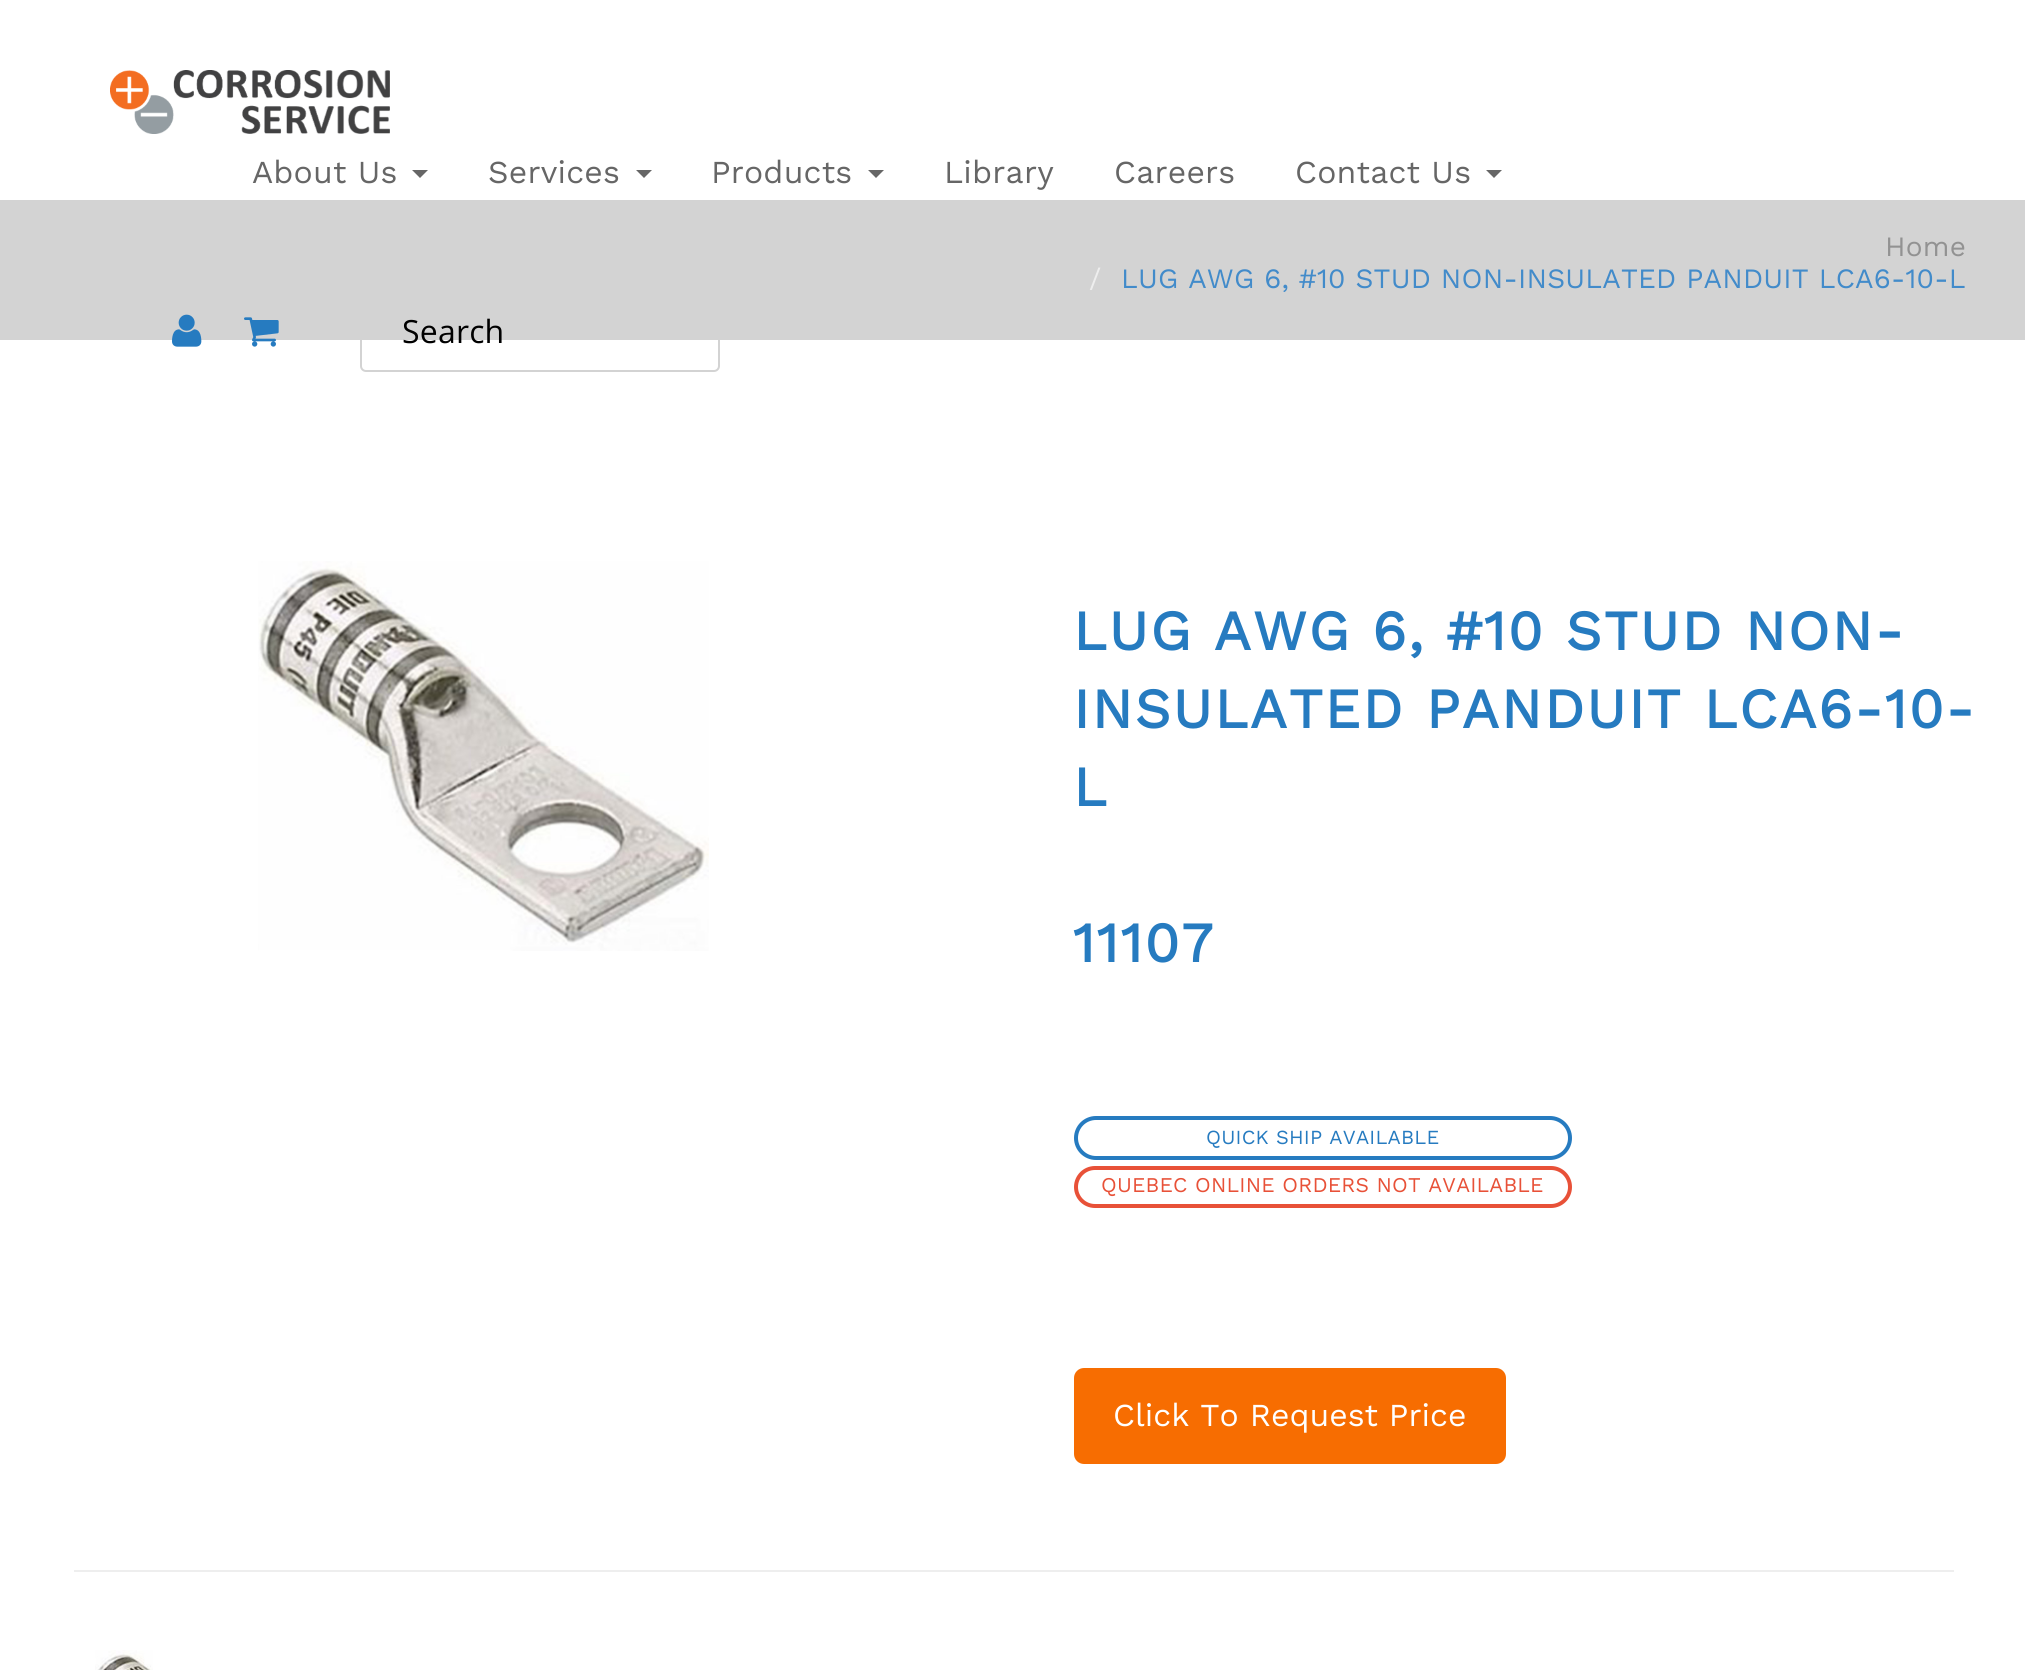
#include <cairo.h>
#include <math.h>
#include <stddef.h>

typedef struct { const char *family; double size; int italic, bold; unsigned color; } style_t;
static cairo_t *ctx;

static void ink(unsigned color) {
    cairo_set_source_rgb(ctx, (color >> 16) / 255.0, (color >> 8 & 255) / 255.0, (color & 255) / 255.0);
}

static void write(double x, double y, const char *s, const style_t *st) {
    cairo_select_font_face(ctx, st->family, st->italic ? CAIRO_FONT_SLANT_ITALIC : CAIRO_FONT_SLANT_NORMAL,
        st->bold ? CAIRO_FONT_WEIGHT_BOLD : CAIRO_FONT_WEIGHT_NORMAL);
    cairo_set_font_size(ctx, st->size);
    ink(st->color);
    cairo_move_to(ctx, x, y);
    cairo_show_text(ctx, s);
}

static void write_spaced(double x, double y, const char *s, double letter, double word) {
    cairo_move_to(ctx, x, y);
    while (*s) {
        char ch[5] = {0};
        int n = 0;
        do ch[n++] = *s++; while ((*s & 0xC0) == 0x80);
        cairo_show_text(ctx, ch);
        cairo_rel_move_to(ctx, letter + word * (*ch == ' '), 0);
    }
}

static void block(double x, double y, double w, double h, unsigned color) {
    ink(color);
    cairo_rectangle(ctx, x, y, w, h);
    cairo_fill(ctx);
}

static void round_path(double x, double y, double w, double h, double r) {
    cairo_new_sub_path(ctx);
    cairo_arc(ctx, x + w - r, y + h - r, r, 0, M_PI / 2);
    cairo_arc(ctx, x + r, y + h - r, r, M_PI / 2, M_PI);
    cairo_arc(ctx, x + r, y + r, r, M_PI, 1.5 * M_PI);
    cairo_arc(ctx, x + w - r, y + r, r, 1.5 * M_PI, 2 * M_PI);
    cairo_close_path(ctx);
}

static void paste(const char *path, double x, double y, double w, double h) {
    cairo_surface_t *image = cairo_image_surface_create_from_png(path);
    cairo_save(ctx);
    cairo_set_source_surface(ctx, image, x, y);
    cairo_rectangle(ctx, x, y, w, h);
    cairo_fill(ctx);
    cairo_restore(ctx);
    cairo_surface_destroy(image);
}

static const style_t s1 = {"Work Sans", 32, 0, 0, 0xffffff};

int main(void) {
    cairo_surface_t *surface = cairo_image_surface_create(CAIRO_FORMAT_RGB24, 2025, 1670);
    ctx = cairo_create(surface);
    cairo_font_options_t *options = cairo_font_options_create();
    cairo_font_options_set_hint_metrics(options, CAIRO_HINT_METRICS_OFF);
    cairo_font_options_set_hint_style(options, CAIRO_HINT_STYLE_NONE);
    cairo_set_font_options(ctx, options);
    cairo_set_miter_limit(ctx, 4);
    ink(0xffffff);
    cairo_paint(ctx);
    paste("pic1.png", 110, 70, 280, 64);
    cairo_select_font_face(ctx, "Work Sans", CAIRO_FONT_SLANT_NORMAL, CAIRO_FONT_WEIGHT_NORMAL);
    cairo_set_font_size(ctx, 32);
    ink(0x666666);
    write_spaced(252, 183, "About Us", 0.2, 0);
    cairo_new_path(ctx);
    cairo_move_to(ctx, 412, 170);
    cairo_line_to(ctx, 428, 170);
    cairo_line_to(ctx, 420, 178);
    cairo_close_path(ctx);
    cairo_fill(ctx);
    write_spaced(488, 183, "Services", 0.2, 0);
    cairo_new_path(ctx);
    cairo_move_to(ctx, 636, 170);
    cairo_line_to(ctx, 652, 170);
    cairo_line_to(ctx, 644, 178);
    cairo_close_path(ctx);
    cairo_fill(ctx);
    write_spaced(711, 183, "Products", 0.2, 0);
    cairo_new_path(ctx);
    cairo_move_to(ctx, 868, 170);
    cairo_line_to(ctx, 884, 170);
    cairo_line_to(ctx, 876, 178);
    cairo_close_path(ctx);
    cairo_fill(ctx);
    write_spaced(944, 183, "Library", 0.2, 0);
    write_spaced(1114, 183, "Careers", 0.2, 0);
    write_spaced(1295, 183, "Contact Us", 0.2, 0);
    cairo_new_path(ctx);
    cairo_move_to(ctx, 1486, 170);
    cairo_line_to(ctx, 1502, 170);
    cairo_line_to(ctx, 1494, 178);
    cairo_close_path(ctx);
    cairo_fill(ctx);
    block(0, 200, 2025, 140, 0xd3d3d3);
    paste("pic2.png", 172, 314, 30, 33);
    paste("pic3.png", 244, 317, 35, 30);
    round_path(361, 291, 358, 80, 5);
    cairo_stroke(ctx);
    cairo_select_font_face(ctx, "Open Sans", CAIRO_FONT_SLANT_NORMAL, CAIRO_FONT_WEIGHT_NORMAL);
    ink(0x000000);
    write_spaced(402, 343, "Search", 0.2, 0);
    cairo_select_font_face(ctx, "Work Sans", CAIRO_FONT_SLANT_NORMAL, CAIRO_FONT_WEIGHT_NORMAL);
    cairo_set_font_size(ctx, 28);
    ink(0x929292);
    write_spaced(1885, 256, "Home", 0.2, 0);
    ink(0xeeeeee);
    write_spaced(1089, 288, "/", 0.2, 0);
    ink(0x428bca);
    write_spaced(1121, 288, "LUG AWG 6, #10 STUD NON-INSULATED PANDUIT LCA6-10-L", 0.2, 0);
    paste("pic4.png", 258, 561, 451, 390);
    cairo_select_font_face(ctx, "Work Sans", CAIRO_FONT_SLANT_NORMAL, CAIRO_FONT_WEIGHT_BOLD);
    cairo_set_font_size(ctx, 56);
    ink(0x267bc0);
    write_spaced(1073, 650, "LUG AWG 6, #10 STUD NON-", 2, 0);
    write_spaced(1073, 728, "INSULATED PANDUIT LCA6-10-", 2, 0);
    write_spaced(1073, 806, "L", 2, 0);
    write_spaced(1073, 962, "11107", 2, 0);
    round_path(1076, 1118, 494, 40, 20);
    cairo_set_line_width(ctx, 4);
    cairo_stroke(ctx);
    cairo_select_font_face(ctx, "Work Sans", CAIRO_FONT_SLANT_NORMAL, CAIRO_FONT_WEIGHT_NORMAL);
    cairo_set_font_size(ctx, 20);
    write_spaced(1206, 1144, "QUICK SHIP AVAILABLE", 0.2, 0);
    round_path(1076, 1168, 494, 38, 19);
    ink(0xe85138);
    cairo_stroke(ctx);
    cairo_set_font_size(ctx, 21);
    write_spaced(1101, 1192, "QUEBEC ONLINE ORDERS NOT AVAILABLE", 0.2, 0);
    ink(0xf76d01);
    round_path(1074, 1368, 432, 96, 10);
    cairo_fill(ctx);
    write(1113, 1426, "Click To Request Price", &s1);
    block(74, 1570, 1880, 2, 0xeeeeee);
    paste("pic5.png", 95, 1650, 58, 20);
    cairo_surface_write_to_png(surface, "screenshot.png");
    cairo_font_options_destroy(options);
    cairo_destroy(ctx);
    cairo_surface_destroy(surface);
    return 0;
}
